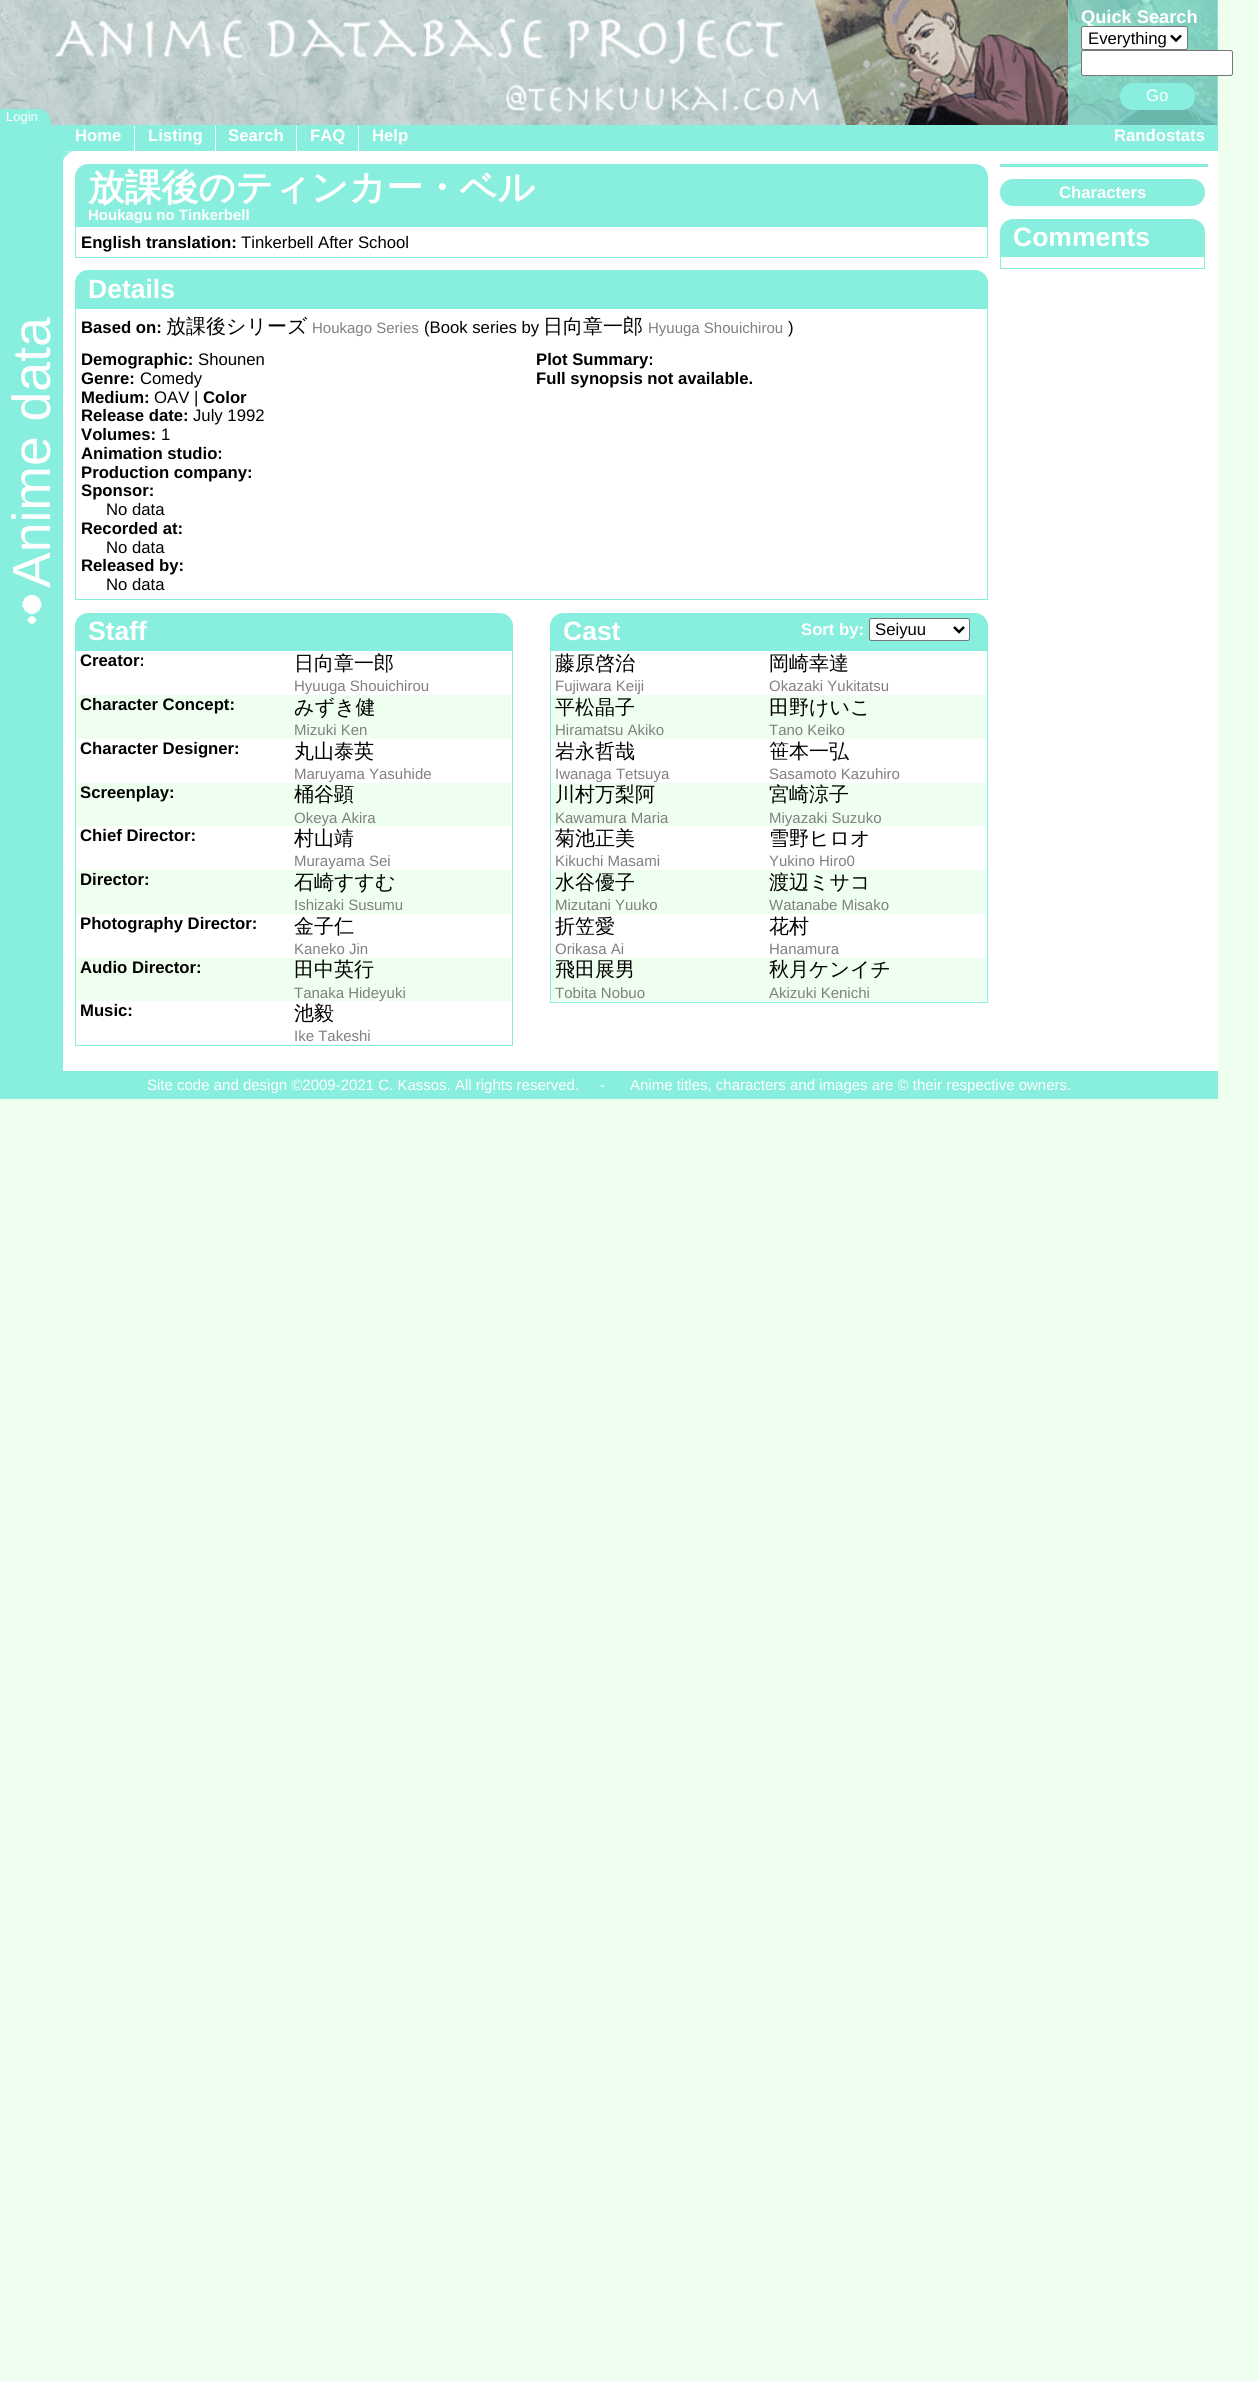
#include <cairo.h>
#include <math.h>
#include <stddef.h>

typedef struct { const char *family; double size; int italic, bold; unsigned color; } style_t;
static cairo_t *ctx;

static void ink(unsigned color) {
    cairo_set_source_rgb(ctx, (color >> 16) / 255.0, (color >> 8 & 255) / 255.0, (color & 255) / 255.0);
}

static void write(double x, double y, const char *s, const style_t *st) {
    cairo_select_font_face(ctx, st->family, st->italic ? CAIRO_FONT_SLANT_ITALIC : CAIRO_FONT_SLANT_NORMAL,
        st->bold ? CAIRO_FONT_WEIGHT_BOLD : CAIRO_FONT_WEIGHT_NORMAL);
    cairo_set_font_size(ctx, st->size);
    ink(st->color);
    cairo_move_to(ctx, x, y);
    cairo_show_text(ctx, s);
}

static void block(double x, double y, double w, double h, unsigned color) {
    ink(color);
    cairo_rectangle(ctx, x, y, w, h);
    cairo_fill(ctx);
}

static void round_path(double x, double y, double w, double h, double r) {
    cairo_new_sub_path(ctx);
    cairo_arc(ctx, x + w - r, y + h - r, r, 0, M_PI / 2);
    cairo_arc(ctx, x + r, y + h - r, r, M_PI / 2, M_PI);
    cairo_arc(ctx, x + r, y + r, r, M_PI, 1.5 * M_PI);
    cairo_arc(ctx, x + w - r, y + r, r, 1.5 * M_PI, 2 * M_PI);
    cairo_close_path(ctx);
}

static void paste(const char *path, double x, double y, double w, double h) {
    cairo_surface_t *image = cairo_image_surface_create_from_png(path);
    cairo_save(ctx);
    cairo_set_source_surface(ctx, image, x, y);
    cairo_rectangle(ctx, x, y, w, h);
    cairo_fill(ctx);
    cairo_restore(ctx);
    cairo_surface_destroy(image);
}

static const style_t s1 = {"Liberation Sans", 18.25, 0, 1, 0xffffff};
static const style_t s2 = {"Liberation Sans", 16.7, 0, 0, 0x000000};
static const style_t s3 = {"Liberation Sans", 16.7, 0, 0, 0xffffff};
static const style_t s4 = {"Liberation Sans", 13, 0, 0, 0xffffff};
static const style_t s5 = {"Liberation Sans", 16.7, 0, 1, 0xffffff};
static const style_t s6 = {"Liberation Sans", 53.5, 0, 0, 0xffffff};
static const style_t s7 = {"WenQuanYi Zen Hei", 36.75, 0, 1, 0xffffff};
static const style_t s8 = {"Liberation Sans", 15, 0, 1, 0xffffff};
static const style_t s9 = {"Liberation Sans", 16.7, 0, 1, 0x000000};
static const style_t s10 = {"Liberation Sans", 26.5, 0, 1, 0xffffff};
static const style_t s11 = {"WenQuanYi Zen Hei Medium", 20, 0, 0, 0x000000};
static const style_t s12 = {"Liberation Sans", 15, 0, 0, 0x808080};
static const style_t s13 = {"Liberation Sans", 15, 0, 0, 0xffffff};

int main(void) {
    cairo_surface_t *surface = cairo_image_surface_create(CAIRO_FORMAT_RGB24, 1259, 2381);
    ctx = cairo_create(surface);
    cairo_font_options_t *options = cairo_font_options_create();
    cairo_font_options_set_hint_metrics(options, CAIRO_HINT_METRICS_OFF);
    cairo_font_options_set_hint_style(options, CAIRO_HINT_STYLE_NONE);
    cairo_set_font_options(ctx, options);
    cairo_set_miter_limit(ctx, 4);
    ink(0xeefff0);
    cairo_paint(ctx);
    paste("pic1.png", 0, 0, 1218, 125);
    cairo_set_source_rgba(ctx, 0.533, 0.933, 0.867, 0.75);
    cairo_rectangle(ctx, 1068, 0, 150, 125);
    cairo_fill(ctx);
    write(1081, 23, "Quick Search", &s1);
    round_path(1081.5, 26.5, 106, 23, 2);
    cairo_fill_preserve(ctx);
    ink(0x767676);
    cairo_set_line_width(ctx, 1);
    cairo_stroke(ctx);
    cairo_new_path(ctx);
    cairo_move_to(ctx, 1171, 35.5);
    cairo_line_to(ctx, 1176, 40.5);
    cairo_line_to(ctx, 1181, 35.5);
    ink(0x000000);
    cairo_set_line_width(ctx, 2.5);
    cairo_stroke(ctx);
    write(1088, 44, "Everything", &s2);
    ink(0xffffff);
    round_path(1081.5, 50.5, 151, 25, 2);
    cairo_fill_preserve(ctx);
    ink(0x767676);
    cairo_set_line_width(ctx, 1);
    cairo_stroke(ctx);
    ink(0x88eedd);
    round_path(1120, 83, 75, 27, 13);
    cairo_fill(ctx);
    write(1146, 101, "Go", &s3);
    ink(0x88eedd);
    cairo_new_path(ctx);
    cairo_move_to(ctx, 0, 109);
    cairo_line_to(ctx, 38, 109);
    cairo_curve_to(ctx, 45, 109, 51, 115, 51, 122);
    cairo_line_to(ctx, 51, 125);
    cairo_line_to(ctx, 0, 125);
    cairo_close_path(ctx);
    cairo_fill(ctx);
    write(6, 121, "Login", &s4);
    block(0, 125, 1218, 26, 0x88eedd);
    write(75, 141, "Home", &s5);
    block(134, 126, 1, 25, 0xffffff);
    write(148, 141, "Listing", &s5);
    block(215, 126, 1, 25, 0xffffff);
    write(228, 141, "Search", &s5);
    block(296, 126, 1, 25, 0xffffff);
    write(310, 141, "FAQ", &s5);
    block(358, 126, 1, 25, 0xffffff);
    write(372, 141, "Help", &s5);
    write(1114, 141, "Randostats", &s5);
    block(0, 151, 63, 920, 0x88eedd);
    block(63, 151, 1155, 920, 0xffffff);
    paste("pic2.png", 63, 151, 9, 10);
    cairo_save(ctx);
    cairo_translate(ctx, 50, 588);
    cairo_rotate(ctx, -90 * M_PI / 180);
    write(0, 0, "Anime data", &s6);
    cairo_restore(ctx);
    paste("pic3.png", 22, 595, 20, 29);
    ink(0x88eedd);
    cairo_new_path(ctx);
    cairo_move_to(ctx, 88, 164);
    cairo_line_to(ctx, 975, 164);
    cairo_curve_to(ctx, 982, 164, 988, 170, 988, 177);
    cairo_line_to(ctx, 988, 226);
    cairo_line_to(ctx, 75, 226);
    cairo_line_to(ctx, 75, 177);
    cairo_curve_to(ctx, 75, 170, 81, 164, 88, 164);
    cairo_close_path(ctx);
    cairo_fill(ctx);
    write(88, 200, "放課後のティンカー・ベル", &s7);
    write(88, 220, "Houkagu no Tinkerbell", &s8);
    cairo_rectangle(ctx, 75.5, 226.5, 912, 31);
    ink(0x88eedd);
    cairo_stroke(ctx);
    write(81, 248, "English translation:", &s9);
    write(241, 248, "Tinkerbell After School", &s2);
    ink(0x88eedd);
    cairo_new_path(ctx);
    cairo_move_to(ctx, 88, 270);
    cairo_line_to(ctx, 975, 270);
    cairo_curve_to(ctx, 982, 270, 988, 276, 988, 283);
    cairo_line_to(ctx, 988, 308);
    cairo_line_to(ctx, 75, 308);
    cairo_line_to(ctx, 75, 283);
    cairo_curve_to(ctx, 75, 276, 81, 270, 88, 270);
    cairo_close_path(ctx);
    cairo_fill(ctx);
    write(88, 298, "Details", &s10);
    cairo_rectangle(ctx, 75.5, 308.5, 912, 291);
    ink(0x88eedd);
    cairo_stroke(ctx);
    write(81, 333, "Based on:", &s9);
    write(166, 333, "放課後シリーズ", &s11);
    write(312, 333, "Houkago Series", &s12);
    write(424, 333, "(Book series by", &s2);
    write(543, 333, "日向章一郎", &s11);
    write(648, 333, "Hyuuga Shouichirou", &s12);
    write(788, 333, ")", &s2);
    write(81, 365, "Demographic:", &s9);
    write(198, 365, "Shounen", &s2);
    write(81, 384, "Genre:", &s9);
    write(140, 384, "Comedy", &s2);
    write(81, 403, "Medium:", &s9);
    write(154, 403, "OAV |", &s2);
    write(203, 403, "Color", &s9);
    write(81, 421, "Release date:", &s9);
    write(193, 421, "July 1992", &s2);
    write(81, 440, "Volumes:", &s9);
    write(161, 440, "1", &s2);
    write(81, 459, "Animation studio:", &s9);
    write(81, 478, "Production company:", &s9);
    write(81, 496, "Sponsor:", &s9);
    write(106, 515, "No data", &s2);
    write(81, 534, "Recorded at:", &s9);
    write(106, 553, "No data", &s2);
    write(81, 571, "Released by:", &s9);
    write(106, 590, "No data", &s2);
    write(536, 365, "Plot Summary:", &s9);
    write(536, 384, "Full synopsis not available.", &s9);
    ink(0x88eedd);
    cairo_new_path(ctx);
    cairo_move_to(ctx, 88, 613);
    cairo_line_to(ctx, 500, 613);
    cairo_curve_to(ctx, 507, 613, 513, 619, 513, 626);
    cairo_line_to(ctx, 513, 650);
    cairo_line_to(ctx, 75, 650);
    cairo_line_to(ctx, 75, 626);
    cairo_curve_to(ctx, 75, 619, 81, 613, 88, 613);
    cairo_close_path(ctx);
    cairo_fill(ctx);
    write(88, 640, "Staff", &s10);
    cairo_rectangle(ctx, 75.5, 650.5, 437, 395);
    ink(0x88eedd);
    cairo_stroke(ctx);
    write(80, 666, "Creator:", &s9);
    write(294, 670, "日向章一郎", &s11);
    write(294, 691, "Hyuuga Shouichirou", &s12);
    block(76, 695, 435, 44, 0xeefff0);
    write(80, 710, "Character Concept:", &s9);
    write(294, 714, "みずき健", &s11);
    write(294, 735, "Mizuki Ken", &s12);
    write(80, 754, "Character Designer:", &s9);
    write(294, 758, "丸山泰英", &s11);
    write(294, 779, "Maruyama Yasuhide", &s12);
    block(76, 783, 435, 43, 0xeefff0);
    write(80, 798, "Screenplay:", &s9);
    write(294, 801, "桶谷顕", &s11);
    write(294, 823, "Okeya Akira", &s12);
    write(80, 841, "Chief Director:", &s9);
    write(294, 845, "村山靖", &s11);
    write(294, 866, "Murayama Sei", &s12);
    block(76, 870, 435, 44, 0xeefff0);
    write(80, 885, "Director:", &s9);
    write(294, 889, "石崎すすむ", &s11);
    write(294, 910, "Ishizaki Susumu", &s12);
    write(80, 929, "Photography Director:", &s9);
    write(294, 933, "金子仁", &s11);
    write(294, 954, "Kaneko Jin", &s12);
    block(76, 958, 435, 43, 0xeefff0);
    write(80, 973, "Audio Director:", &s9);
    write(294, 976, "田中英行", &s11);
    write(294, 998, "Tanaka Hideyuki", &s12);
    write(80, 1016, "Music:", &s9);
    write(294, 1020, "池毅", &s11);
    write(294, 1041, "Ike Takeshi", &s12);
    ink(0x88eedd);
    cairo_new_path(ctx);
    cairo_move_to(ctx, 563, 613);
    cairo_line_to(ctx, 975, 613);
    cairo_curve_to(ctx, 982, 613, 988, 619, 988, 626);
    cairo_line_to(ctx, 988, 650);
    cairo_line_to(ctx, 550, 650);
    cairo_line_to(ctx, 550, 626);
    cairo_curve_to(ctx, 550, 619, 556, 613, 563, 613);
    cairo_close_path(ctx);
    cairo_fill(ctx);
    write(563, 640, "Cast", &s10);
    write(801, 635, "Sort by:", &s5);
    round_path(869.5, 618.5, 100, 22, 2);
    cairo_fill_preserve(ctx);
    ink(0x767676);
    cairo_stroke(ctx);
    cairo_new_path(ctx);
    cairo_move_to(ctx, 954, 627);
    cairo_line_to(ctx, 959, 632);
    cairo_line_to(ctx, 964, 627);
    ink(0x000000);
    cairo_set_line_width(ctx, 2.5);
    cairo_stroke(ctx);
    write(875, 635, "Seiyuu", &s2);
    cairo_rectangle(ctx, 550.5, 650.5, 437, 352);
    ink(0x88eedd);
    cairo_set_line_width(ctx, 1);
    cairo_stroke(ctx);
    write(555, 670, "藤原啓治", &s11);
    write(555, 691, "Fujiwara Keiji", &s12);
    write(769, 670, "岡崎幸達", &s11);
    write(769, 691, "Okazaki Yukitatsu", &s12);
    block(551, 695, 435, 44, 0xeefff0);
    write(555, 714, "平松晶子", &s11);
    write(555, 735, "Hiramatsu Akiko", &s12);
    write(769, 714, "田野けいこ", &s11);
    write(769, 735, "Tano Keiko", &s12);
    write(555, 758, "岩永哲哉", &s11);
    write(555, 779, "Iwanaga Tetsuya", &s12);
    write(769, 758, "笹本一弘", &s11);
    write(769, 779, "Sasamoto Kazuhiro", &s12);
    block(551, 783, 435, 43, 0xeefff0);
    write(555, 801, "川村万梨阿", &s11);
    write(555, 823, "Kawamura Maria", &s12);
    write(769, 801, "宮崎涼子", &s11);
    write(769, 823, "Miyazaki Suzuko", &s12);
    write(555, 845, "菊池正美", &s11);
    write(555, 866, "Kikuchi Masami", &s12);
    write(769, 845, "雪野ヒロオ", &s11);
    write(769, 866, "Yukino Hiro0", &s12);
    block(551, 870, 435, 44, 0xeefff0);
    write(555, 889, "水谷優子", &s11);
    write(555, 910, "Mizutani Yuuko", &s12);
    write(769, 889, "渡辺ミサコ", &s11);
    write(769, 910, "Watanabe Misako", &s12);
    write(555, 933, "折笠愛", &s11);
    write(555, 954, "Orikasa Ai", &s12);
    write(769, 933, "花村", &s11);
    write(769, 954, "Hanamura", &s12);
    block(551, 958, 435, 43, 0xeefff0);
    write(555, 976, "飛田展男", &s11);
    write(555, 998, "Tobita Nobuo", &s12);
    write(769, 976, "秋月ケンイチ", &s11);
    write(769, 998, "Akizuki Kenichi", &s12);
    block(1000, 164, 208, 3, 0x88eedd);
    round_path(1000, 179, 205, 27, 13);
    cairo_fill(ctx);
    write(1059, 198, "Characters", &s5);
    ink(0x88eedd);
    cairo_new_path(ctx);
    cairo_move_to(ctx, 1013, 219);
    cairo_line_to(ctx, 1192, 219);
    cairo_curve_to(ctx, 1199, 219, 1205, 225, 1205, 232);
    cairo_line_to(ctx, 1205, 256);
    cairo_line_to(ctx, 1000, 256);
    cairo_line_to(ctx, 1000, 232);
    cairo_curve_to(ctx, 1000, 225, 1006, 219, 1013, 219);
    cairo_close_path(ctx);
    cairo_fill(ctx);
    write(1013, 246, "Comments", &s10);
    cairo_rectangle(ctx, 1000.5, 256.5, 204, 12);
    ink(0x88eedd);
    cairo_stroke(ctx);
    block(0, 1071, 1218, 28, 0x88eedd);
    write(147, 1090, "Site code and design ©2009-2021 C. Kassos. All rights reserved.     -      Anime titles, characters and images are © their respective owners.", &s13);
    cairo_surface_write_to_png(surface, "screenshot.png");
    cairo_font_options_destroy(options);
    cairo_destroy(ctx);
    cairo_surface_destroy(surface);
    return 0;
}
